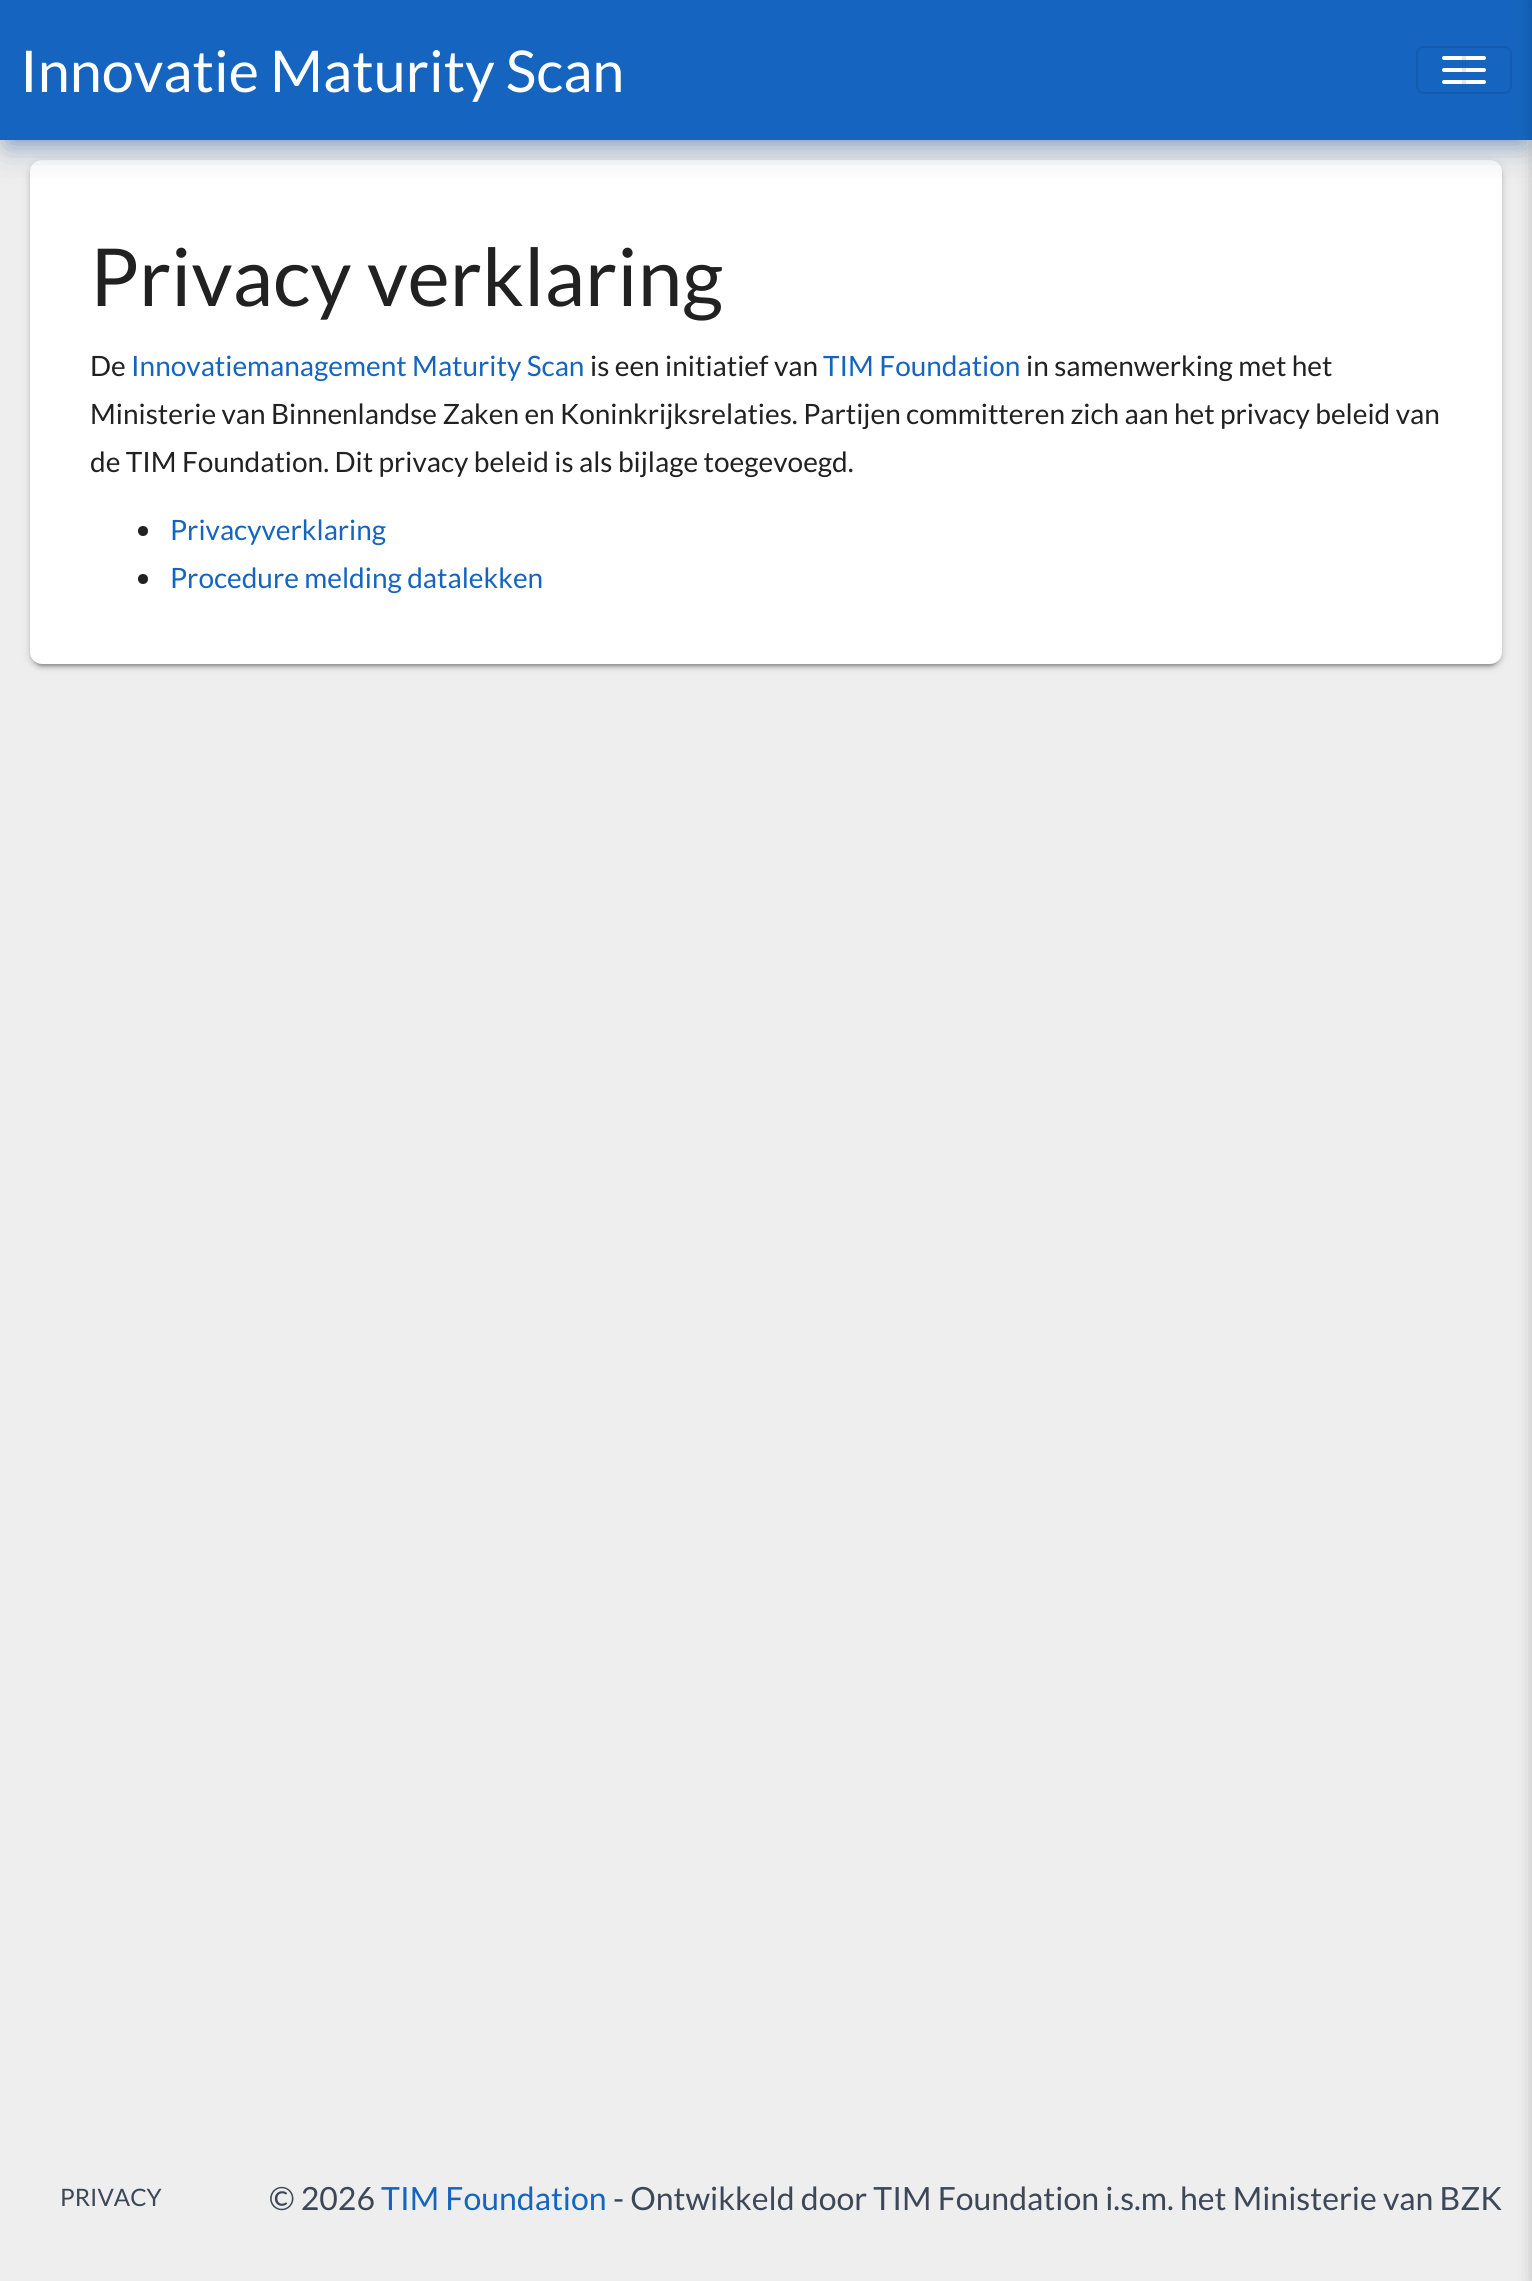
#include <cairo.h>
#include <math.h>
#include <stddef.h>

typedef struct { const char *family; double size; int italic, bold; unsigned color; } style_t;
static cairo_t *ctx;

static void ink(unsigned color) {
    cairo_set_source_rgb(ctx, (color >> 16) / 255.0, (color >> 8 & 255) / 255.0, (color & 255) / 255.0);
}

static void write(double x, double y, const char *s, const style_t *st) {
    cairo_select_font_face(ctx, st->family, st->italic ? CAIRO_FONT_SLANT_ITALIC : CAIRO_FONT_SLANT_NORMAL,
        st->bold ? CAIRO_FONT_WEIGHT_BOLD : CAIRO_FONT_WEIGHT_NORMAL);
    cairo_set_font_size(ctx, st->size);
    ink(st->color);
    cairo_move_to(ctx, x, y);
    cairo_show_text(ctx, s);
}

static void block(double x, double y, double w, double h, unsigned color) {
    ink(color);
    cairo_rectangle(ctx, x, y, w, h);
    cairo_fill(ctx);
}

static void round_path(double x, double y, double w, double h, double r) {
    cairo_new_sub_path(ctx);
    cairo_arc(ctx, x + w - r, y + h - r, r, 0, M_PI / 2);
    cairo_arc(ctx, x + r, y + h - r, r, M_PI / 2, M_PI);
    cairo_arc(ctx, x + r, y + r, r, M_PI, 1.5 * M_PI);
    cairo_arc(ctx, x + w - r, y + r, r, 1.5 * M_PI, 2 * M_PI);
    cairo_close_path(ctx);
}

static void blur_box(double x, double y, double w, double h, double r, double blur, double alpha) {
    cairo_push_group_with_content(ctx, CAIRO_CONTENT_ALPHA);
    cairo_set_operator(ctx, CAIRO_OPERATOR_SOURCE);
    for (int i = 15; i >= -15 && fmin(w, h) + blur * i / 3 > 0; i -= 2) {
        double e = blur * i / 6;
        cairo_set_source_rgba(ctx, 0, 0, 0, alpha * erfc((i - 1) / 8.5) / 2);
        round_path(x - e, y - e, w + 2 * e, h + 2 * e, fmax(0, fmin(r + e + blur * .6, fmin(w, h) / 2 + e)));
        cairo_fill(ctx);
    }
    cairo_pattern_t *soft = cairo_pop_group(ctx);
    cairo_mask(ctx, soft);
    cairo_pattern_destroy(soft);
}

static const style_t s1 = {"Lato", 57.6, 0, 0, 0xffffff};
static const style_t s2 = {"Lato", 80, 0, 0, 0x212121};
static const style_t s3 = {"Lato", 28, 0, 0, 0x212121};
static const style_t s4 = {"Lato", 28, 0, 0, 0x1565c0};
static const style_t s5 = {"Lato", 24, 0, 0, 0x3c4858};
static const style_t s6 = {"Lato", 32, 0, 0, 0x3c4858};
static const style_t s7 = {"Lato", 32, 0, 0, 0x1565c0};

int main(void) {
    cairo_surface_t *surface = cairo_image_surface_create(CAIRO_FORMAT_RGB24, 1532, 2281);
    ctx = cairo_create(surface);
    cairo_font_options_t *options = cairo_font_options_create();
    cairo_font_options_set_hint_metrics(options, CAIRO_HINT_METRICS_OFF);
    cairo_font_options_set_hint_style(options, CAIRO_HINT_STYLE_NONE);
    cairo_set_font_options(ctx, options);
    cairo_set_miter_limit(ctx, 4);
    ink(0xeeeeee);
    cairo_paint(ctx);
    ink(0x000000);
    blur_box(30, 162, 1472, 504, 12, 5, 0.12);
    blur_box(34, 170, 1464, 496, 8, 1, 0.2);
    blur_box(30, 164, 1472, 504, 12, 2, 0.14);
    ink(0xffffff);
    round_path(30, 160, 1472, 504, 12);
    cairo_fill(ctx);
    ink(0x1764c0);
    blur_box(10, 24, 1512, 120, 0, 12, 0.46);
    ink(0x000000);
    blur_box(0, 8, 1532, 140, 0, 20, 0.14);
    block(0, 0, 1532, 140, 0x1565c0);
    write(20, 92, "Innovatie Maturity Scan", &s1);
    round_path(1417, 47, 94, 46, 7);
    ink(0x135bad);
    cairo_stroke(ctx);
    ink(0xffffff);
    round_path(1442, 56, 44, 4, 2);
    cairo_fill(ctx);
    block(1462, 56, 4, 4, 0xe6e6e6);
    ink(0xffffff);
    round_path(1442, 68, 44, 4, 2);
    cairo_fill(ctx);
    block(1462, 68, 4, 4, 0xe6e6e6);
    ink(0xffffff);
    round_path(1442, 80, 44, 4, 2);
    cairo_fill(ctx);
    block(1462, 80, 4, 4, 0xe6e6e6);
    ink(0x000000);
    blur_box(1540, 0, 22, 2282, 0, 10, 0.5);
    write(90, 306, "Privacy verklaring", &s2);
    write(90, 376, "De", &s3);
    write(131, 376, "Innovatiemanagement Maturity Scan", &s4);
    write(590, 376, "is een initiatief van", &s3);
    write(823, 376, "TIM Foundation", &s4);
    write(1026, 376, "in samenwerking met het", &s3);
    write(90, 424, "Ministerie van Binnenlandse Zaken en Koninkrijksrelaties. Partijen committeren zich aan het privacy beleid van", &s3);
    write(90, 472, "de TIM Foundation. Dit privacy beleid is als bijlage toegevoegd.", &s3);
    cairo_new_path(ctx);
    cairo_arc(ctx, 143, 531, 5, 0, 2 * M_PI);
    cairo_fill(ctx);
    write(170, 540, "Privacyverklaring", &s4);
    ink(0x212121);
    cairo_new_path(ctx);
    cairo_arc(ctx, 143, 579, 5, 0, 2 * M_PI);
    cairo_fill(ctx);
    write(170, 588, "Procedure melding datalekken", &s4);
    write(60, 2206, "PRIVACY", &s5);
    write(269, 2210, "© 2026", &s6);
    write(381, 2210, "TIM Foundation", &s7);
    write(613, 2210, "- Ontwikkeld door TIM Foundation i.s.m. het Ministerie van BZK", &s6);
    cairo_surface_write_to_png(surface, "screenshot.png");
    cairo_font_options_destroy(options);
    cairo_destroy(ctx);
    cairo_surface_destroy(surface);
    return 0;
}
